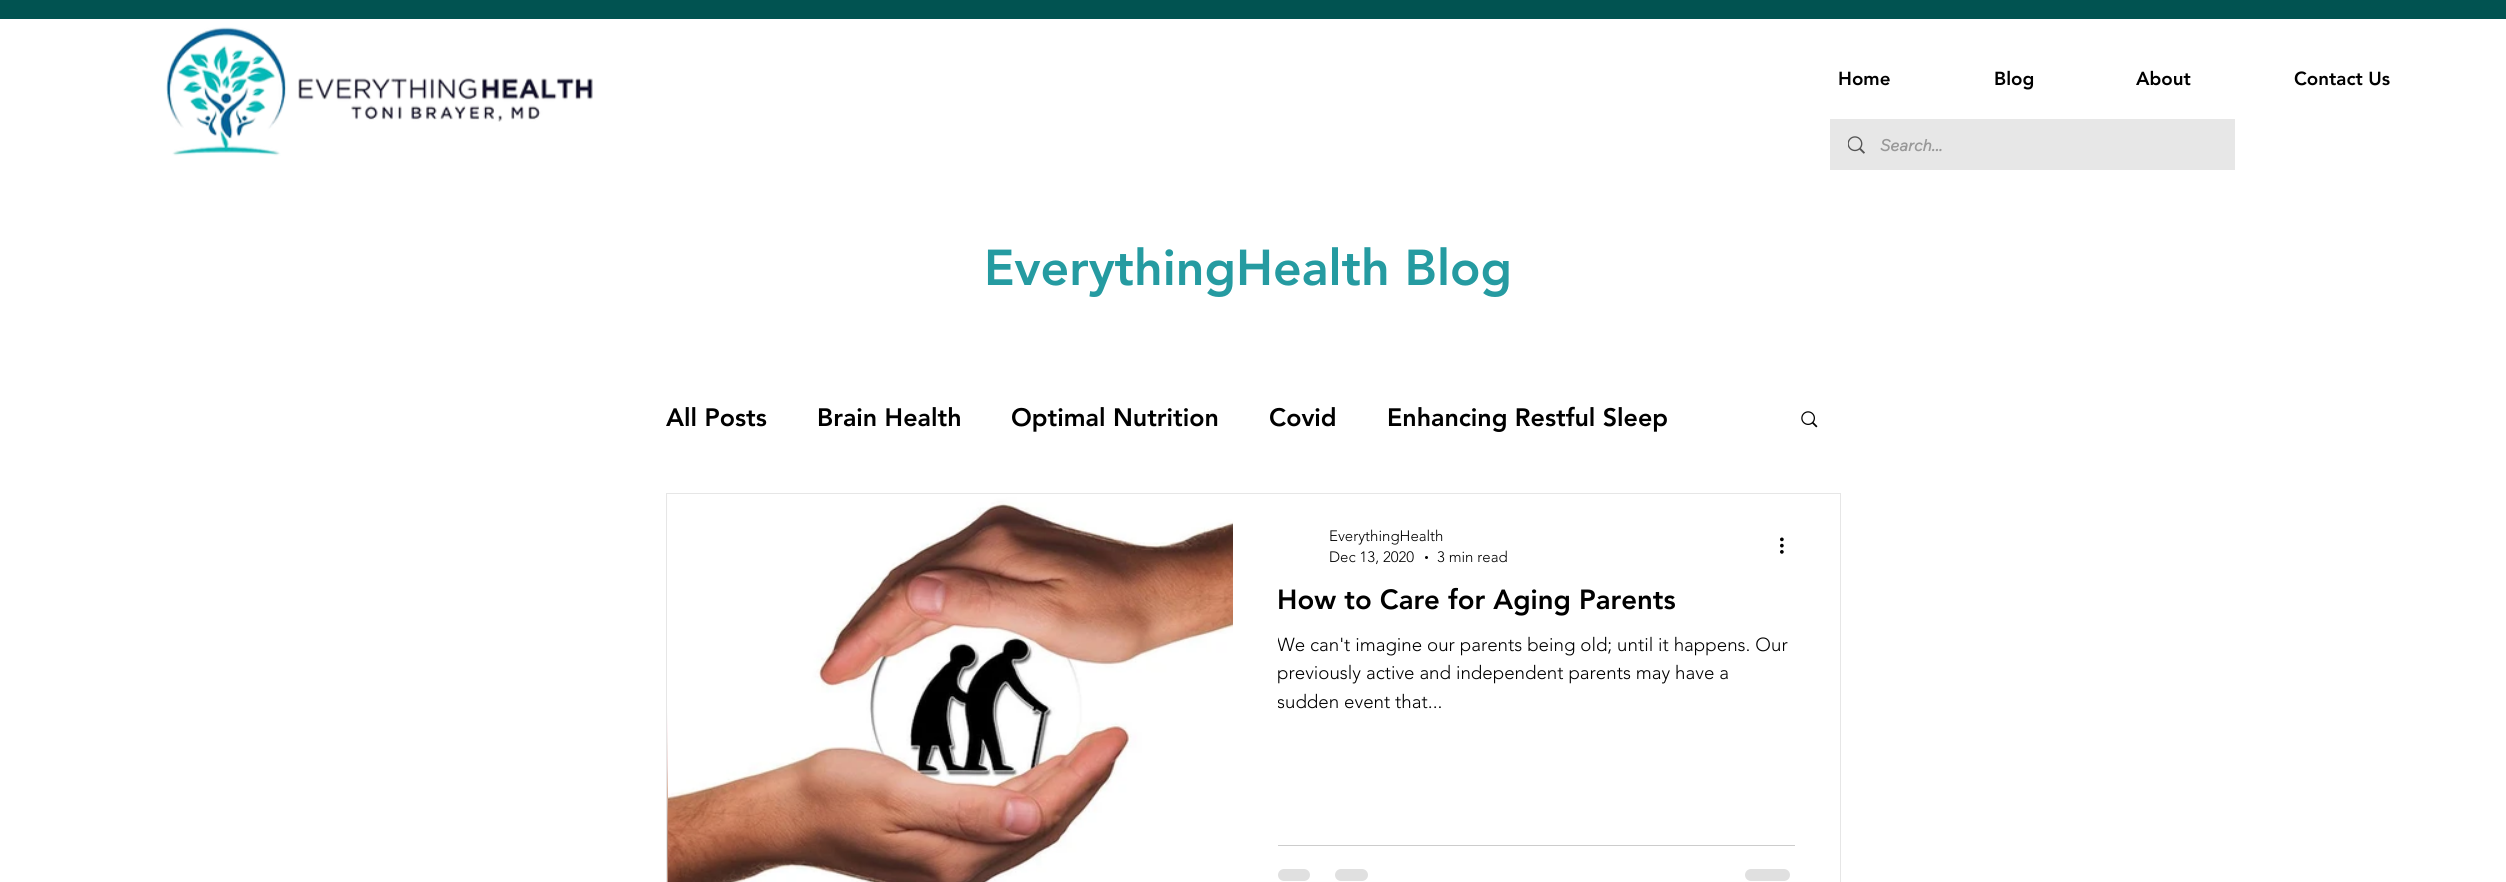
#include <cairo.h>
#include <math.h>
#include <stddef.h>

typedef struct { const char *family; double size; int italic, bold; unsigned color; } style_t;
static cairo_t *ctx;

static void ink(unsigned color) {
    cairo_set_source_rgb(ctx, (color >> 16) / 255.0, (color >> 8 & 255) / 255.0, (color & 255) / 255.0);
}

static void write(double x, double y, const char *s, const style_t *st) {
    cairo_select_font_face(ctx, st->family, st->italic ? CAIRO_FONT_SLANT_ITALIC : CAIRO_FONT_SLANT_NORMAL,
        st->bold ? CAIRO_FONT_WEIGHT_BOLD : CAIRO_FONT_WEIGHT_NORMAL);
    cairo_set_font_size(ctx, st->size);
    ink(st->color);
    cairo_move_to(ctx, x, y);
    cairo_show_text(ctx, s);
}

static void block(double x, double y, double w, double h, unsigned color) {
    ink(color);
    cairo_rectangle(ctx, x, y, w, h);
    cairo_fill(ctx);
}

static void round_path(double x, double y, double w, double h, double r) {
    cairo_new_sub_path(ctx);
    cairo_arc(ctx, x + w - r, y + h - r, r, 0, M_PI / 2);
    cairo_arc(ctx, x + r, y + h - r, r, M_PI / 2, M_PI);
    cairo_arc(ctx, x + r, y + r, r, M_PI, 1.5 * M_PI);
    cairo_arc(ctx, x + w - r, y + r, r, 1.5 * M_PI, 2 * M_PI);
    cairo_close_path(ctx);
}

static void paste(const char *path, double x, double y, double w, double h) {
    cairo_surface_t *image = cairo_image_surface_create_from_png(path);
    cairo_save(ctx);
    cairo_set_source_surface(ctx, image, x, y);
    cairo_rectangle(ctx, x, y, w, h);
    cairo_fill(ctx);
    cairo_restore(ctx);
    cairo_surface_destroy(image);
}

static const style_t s1 = {"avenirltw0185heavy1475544 Black", 18.75, 0, 0, 0x000000};
static const style_t s2 = {"Wix Madefor Text", 16, 1, 1, 0x999999};
static const style_t s3 = {"avenirltw0185heavy1475544 Black", 50, 0, 0, 0x259ba1};
static const style_t s4 = {"avenirltw0185heavy1475544 Black", 25, 0, 0, 0x000000};
static const style_t s5 = {"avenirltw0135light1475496 Light", 15, 0, 0, 0x000000};
static const style_t s6 = {"avenirltw0185heavy1475544 Black", 27.5, 0, 0, 0x000000};
static const style_t s7 = {"avenirltw0135light1475496 Light", 18.75, 0, 0, 0x000000};

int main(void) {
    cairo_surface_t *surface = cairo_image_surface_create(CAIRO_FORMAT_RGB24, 2506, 882);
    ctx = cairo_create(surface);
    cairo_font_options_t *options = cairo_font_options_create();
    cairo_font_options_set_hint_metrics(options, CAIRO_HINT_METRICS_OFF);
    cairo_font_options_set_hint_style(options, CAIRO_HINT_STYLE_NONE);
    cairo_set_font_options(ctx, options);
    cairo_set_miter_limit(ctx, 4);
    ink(0xffffff);
    cairo_paint(ctx);
    block(0, 0, 2506, 19, 0x015351);
    paste("pic1.png", 166, 27, 427, 129);
    write(1838, 85, "Home", &s1);
    write(1994, 85, "Blog", &s1);
    write(2136, 85, "About", &s1);
    write(2294, 85, "Contact Us", &s1);
    block(1830, 119, 405, 51, 0xe7e7e7);
    paste("pic2.png", 1848, 136, 17, 18);
    write(1880, 151, "Search...", &s2);
    write(984, 285, "EverythingHealth Blog", &s3);
    write(666, 426, "All Posts", &s4);
    write(817, 426, "Brain Health", &s4);
    write(1011, 426, "Optimal Nutrition", &s4);
    write(1269, 426, "Covid", &s4);
    write(1387, 426, "Enhancing Restful Sleep", &s4);
    paste("pic3.png", 1801, 411, 17, 17);
    cairo_rectangle(ctx, 666.5, 493.5, 1174, 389);
    ink(0xe6e6e6);
    cairo_set_line_width(ctx, 1);
    cairo_stroke(ctx);
    paste("pic4.png", 667, 494, 1, 388);
    paste("pic5.png", 668, 494, 565, 388);
    write(1329, 541, "EverythingHealth", &s5);
    write(1329, 562, "Dec 13, 2020", &s5);
    cairo_new_path(ctx);
    cairo_arc(ctx, 1426.5, 557.5, 1.5, 0, 2 * M_PI);
    cairo_fill(ctx);
    write(1437, 562, "3 min read", &s5);
    paste("pic6.png", 1780, 537, 4, 17);
    write(1277, 609, "How to Care for Aging Parents", &s6);
    cairo_save(ctx);
    cairo_rectangle(ctx, 1278, 631, 517, 85);
    cairo_clip(ctx);
    write(1277, 651, "We can't imagine our parents being old; until it happens. Our", &s7);
    cairo_restore(ctx);
    write(1277, 679, "previously active and independent parents may have a", &s7);
    cairo_save(ctx);
    cairo_rectangle(ctx, 1278, 631, 517, 85);
    cairo_clip(ctx);
    write(1277, 708, "sudden event that...", &s7);
    cairo_restore(ctx);
    block(1278, 845, 517, 1, 0xcccccc);
    ink(0xe0e0e0);
    round_path(1278, 869, 32, 12, 6);
    cairo_fill(ctx);
    round_path(1335, 869, 33, 12, 6);
    cairo_fill(ctx);
    round_path(1745, 869, 45, 12, 6);
    cairo_fill(ctx);
    cairo_surface_write_to_png(surface, "screenshot.png");
    cairo_font_options_destroy(options);
    cairo_destroy(ctx);
    cairo_surface_destroy(surface);
    return 0;
}
